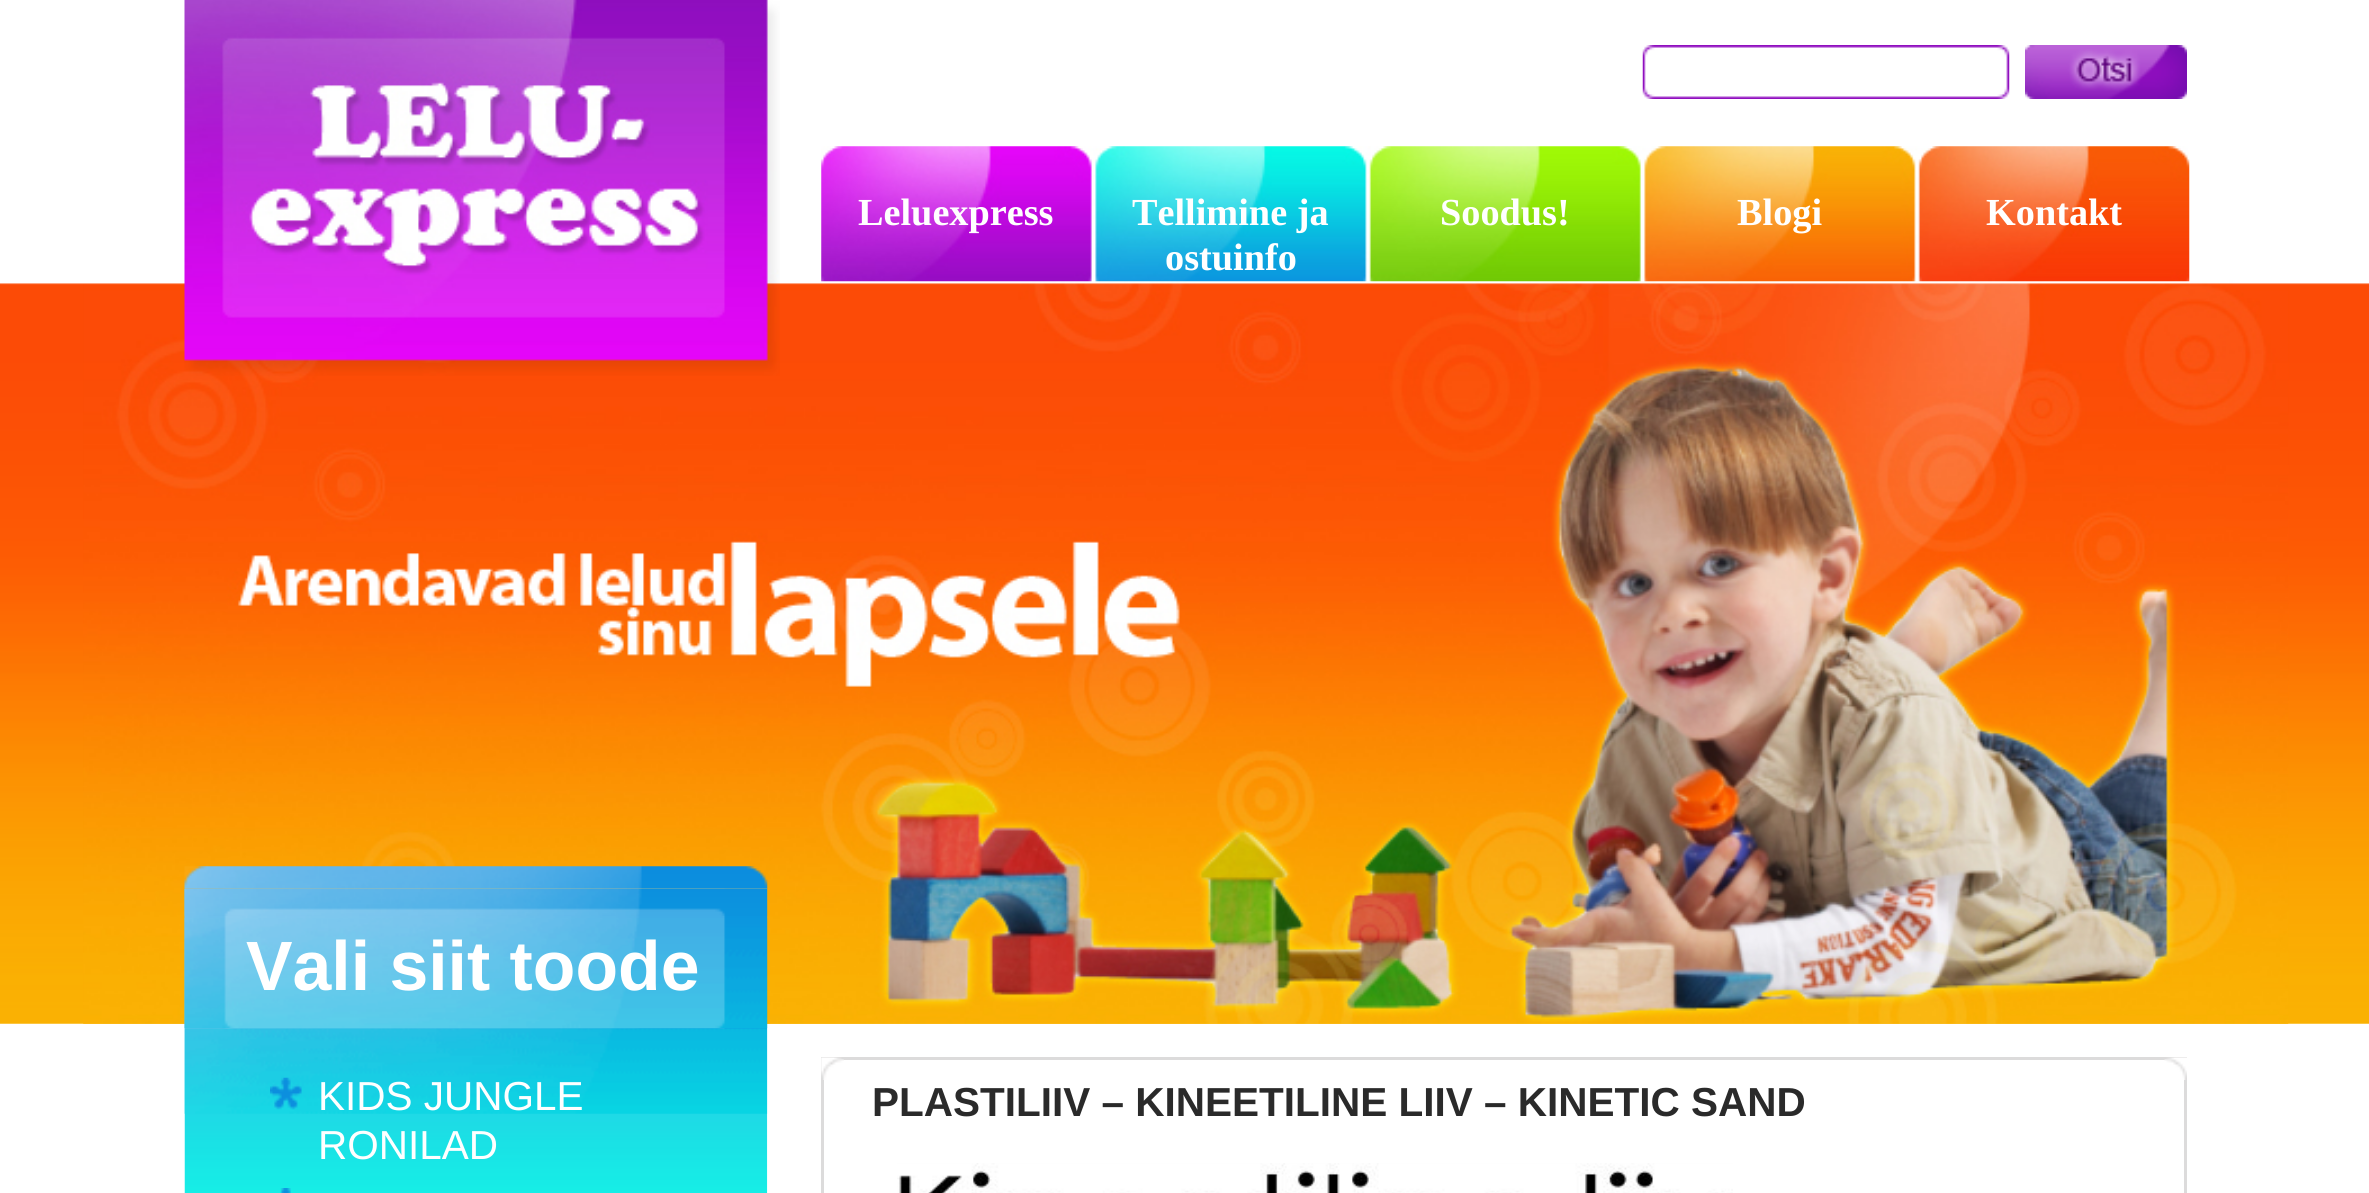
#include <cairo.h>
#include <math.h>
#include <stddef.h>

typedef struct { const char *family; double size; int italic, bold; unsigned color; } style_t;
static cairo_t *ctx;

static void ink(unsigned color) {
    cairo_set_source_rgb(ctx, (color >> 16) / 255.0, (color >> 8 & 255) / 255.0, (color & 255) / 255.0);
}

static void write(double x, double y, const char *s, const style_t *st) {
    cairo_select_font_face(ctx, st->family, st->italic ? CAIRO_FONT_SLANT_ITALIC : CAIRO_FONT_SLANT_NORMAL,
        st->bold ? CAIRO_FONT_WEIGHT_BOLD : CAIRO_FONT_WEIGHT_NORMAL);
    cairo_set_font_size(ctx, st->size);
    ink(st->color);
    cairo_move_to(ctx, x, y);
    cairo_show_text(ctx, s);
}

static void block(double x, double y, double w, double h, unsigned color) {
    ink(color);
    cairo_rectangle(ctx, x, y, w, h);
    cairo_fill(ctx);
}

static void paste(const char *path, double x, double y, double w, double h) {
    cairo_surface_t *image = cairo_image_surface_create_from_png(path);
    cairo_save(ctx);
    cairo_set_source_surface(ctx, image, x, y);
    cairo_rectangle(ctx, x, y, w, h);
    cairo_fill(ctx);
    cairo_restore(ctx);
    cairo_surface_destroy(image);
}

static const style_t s1 = {"Liberation Serif", 38.25, 0, 1, 0xffffff};
static const style_t s2 = {"Liberation Sans", 69.75, 0, 1, 0xffffff};
static const style_t s3 = {"Liberation Sans", 40.5, 0, 0, 0xffffff};
static const style_t s4 = {"Liberation Sans", 40.5, 0, 1, 0x2a2a2a};

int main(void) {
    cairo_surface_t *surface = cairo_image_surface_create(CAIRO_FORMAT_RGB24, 2369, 1193);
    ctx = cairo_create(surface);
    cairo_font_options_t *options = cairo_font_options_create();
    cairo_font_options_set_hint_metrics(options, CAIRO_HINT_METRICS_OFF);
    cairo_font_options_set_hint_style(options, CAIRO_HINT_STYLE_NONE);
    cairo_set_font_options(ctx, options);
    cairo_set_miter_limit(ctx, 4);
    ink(0xffffff);
    cairo_paint(ctx);
    paste("pic1.png", 0, 283, 2369, 741);
    paste("pic2.png", 83, 245, 2206, 779);
    paste("pic3.png", 184, 0, 596, 376);
    paste("pic4.png", 1642, 45, 368, 54);
    paste("pic5.png", 2025, 45, 162, 54);
    paste("pic6.png", 821, 146, 1369, 136);
    write(858, 225, "Leluexpress", &s1);
    write(1132, 225, "Tellimine ja", &s1);
    write(1165, 270, "ostuinfo", &s1);
    write(1440, 225, "Soodus!", &s1);
    write(1737, 225, "Blogi", &s1);
    write(1986, 225, "Kontakt", &s1);
    paste("pic7.png", 184, 866, 584, 23);
    paste("pic8.png", 184, 888, 584, 305);
    paste("pic9.png", 184, 888, 584, 226);
    paste("pic10.png", 184, 888, 584, 141);
    paste("pic11.png", 184, 888, 584, 28);
    paste("pic12.png", 184, 918, 584, 110);
    write(246, 990, "Vali siit toode", &s2);
    paste("pic13.png", 270, 1077, 32, 33);
    write(318, 1110, "KIDS JUNGLE", &s3);
    write(318, 1159, "RONILAD", &s3);
    paste("pic14.png", 280, 1188, 11, 5);
    block(821, 1057, 1366, 3, 0xdcdbdb);
    block(821, 1060, 3, 133, 0xdcdbdb);
    block(2184, 1080, 3, 113, 0xdcdbdb);
    paste("pic15.png", 821, 1057, 23, 23);
    paste("pic16.png", 2164, 1057, 23, 23);
    write(872, 1116, "PLASTILIIV – KINEETILINE LIIV – KINETIC SAND", &s4);
    paste("pic17.png", 897, 1163, 836, 30);
    cairo_surface_write_to_png(surface, "screenshot.png");
    cairo_font_options_destroy(options);
    cairo_destroy(ctx);
    cairo_surface_destroy(surface);
    return 0;
}
